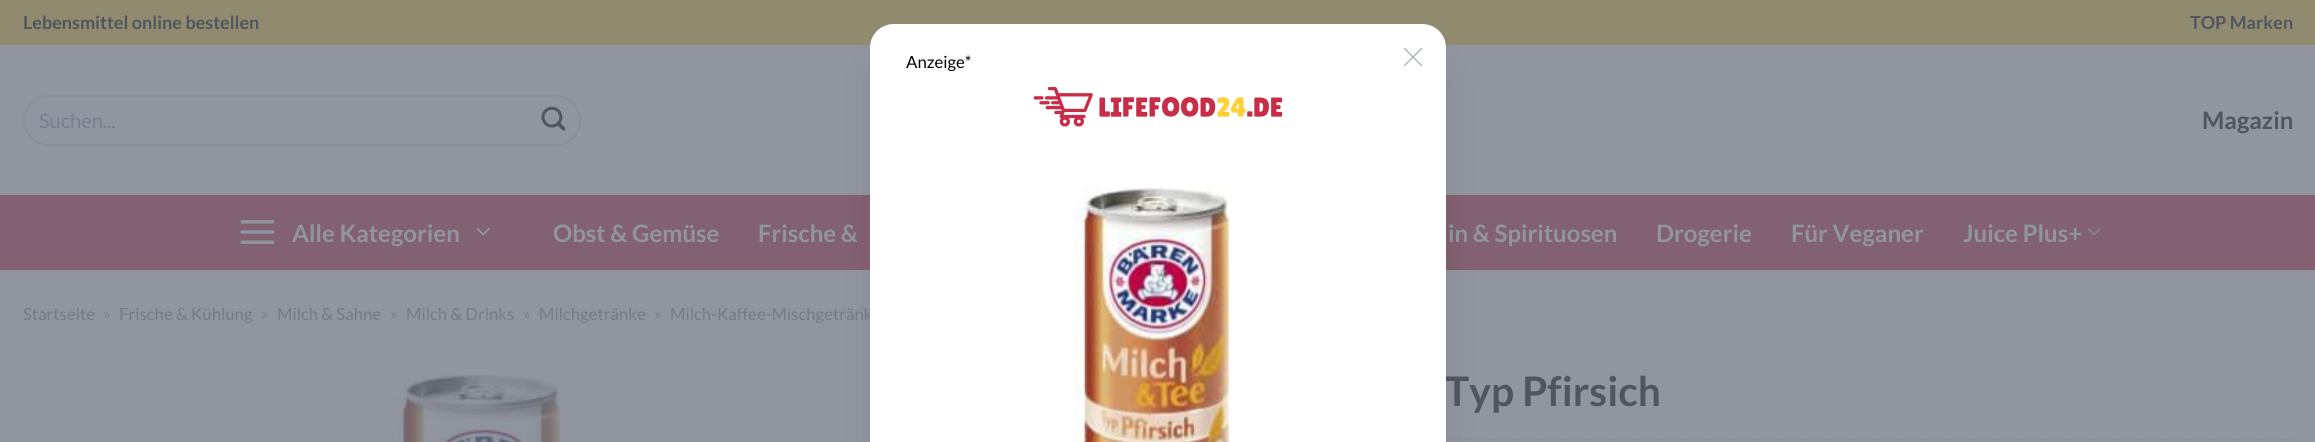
#include <cairo.h>
#include <math.h>
#include <stddef.h>

typedef struct { const char *family; double size; int italic, bold; unsigned color; } style_t;
static cairo_t *ctx;

static void ink(unsigned color) {
    cairo_set_source_rgb(ctx, (color >> 16) / 255.0, (color >> 8 & 255) / 255.0, (color & 255) / 255.0);
}

static void write(double x, double y, const char *s, const style_t *st) {
    cairo_select_font_face(ctx, st->family, st->italic ? CAIRO_FONT_SLANT_ITALIC : CAIRO_FONT_SLANT_NORMAL,
        st->bold ? CAIRO_FONT_WEIGHT_BOLD : CAIRO_FONT_WEIGHT_NORMAL);
    cairo_set_font_size(ctx, st->size);
    ink(st->color);
    cairo_move_to(ctx, x, y);
    cairo_show_text(ctx, s);
}

static void block(double x, double y, double w, double h, unsigned color) {
    ink(color);
    cairo_rectangle(ctx, x, y, w, h);
    cairo_fill(ctx);
}

static void round_path(double x, double y, double w, double h, double r) {
    cairo_new_sub_path(ctx);
    cairo_arc(ctx, x + w - r, y + h - r, r, 0, M_PI / 2);
    cairo_arc(ctx, x + r, y + h - r, r, M_PI / 2, M_PI);
    cairo_arc(ctx, x + r, y + r, r, M_PI, 1.5 * M_PI);
    cairo_arc(ctx, x + w - r, y + r, r, 1.5 * M_PI, 2 * M_PI);
    cairo_close_path(ctx);
}

static void blur_box(double x, double y, double w, double h, double r, double blur, double alpha) {
    cairo_push_group_with_content(ctx, CAIRO_CONTENT_ALPHA);
    cairo_set_operator(ctx, CAIRO_OPERATOR_SOURCE);
    for (int i = 15; i >= -15 && fmin(w, h) + blur * i / 3 > 0; i -= 2) {
        double e = blur * i / 6;
        cairo_set_source_rgba(ctx, 0, 0, 0, alpha * erfc((i - 1) / 8.5) / 2);
        round_path(x - e, y - e, w + 2 * e, h + 2 * e, fmax(0, fmin(r + e + blur * .6, fmin(w, h) / 2 + e)));
        cairo_fill(ctx);
    }
    cairo_pattern_t *soft = cairo_pop_group(ctx);
    cairo_mask(ctx, soft);
    cairo_pattern_destroy(soft);
}

static void paste(const char *path, double x, double y, double w, double h) {
    cairo_surface_t *image = cairo_image_surface_create_from_png(path);
    cairo_save(ctx);
    cairo_set_source_surface(ctx, image, x, y);
    cairo_rectangle(ctx, x, y, w, h);
    cairo_fill(ctx);
    cairo_restore(ctx);
    cairo_surface_destroy(image);
}

static const style_t s1 = {"Lato", 18, 0, 1, 0x505660};
static const style_t s2 = {"Lato", 20, 0, 0, 0x777e8c};
static const style_t s3 = {"Lato", 24, 0, 1, 0x505660};
static const style_t s4 = {"Lato", 24, 0, 1, 0x9095a0};
static const style_t s5 = {"Lato", 16.75, 0, 0, 0x757b85};
static const style_t s6 = {"Lato", 16.75, 0, 0, 0x7d828d};
static const style_t s7 = {"Lato", 40.75, 0, 1, 0x505660};
static const style_t s8 = {"Lato", 16.75, 0, 0, 0x000000};

int main(void) {
    cairo_surface_t *surface = cairo_image_surface_create(CAIRO_FORMAT_RGB24, 2315, 442);
    ctx = cairo_create(surface);
    cairo_font_options_t *options = cairo_font_options_create();
    cairo_font_options_set_hint_metrics(options, CAIRO_HINT_METRICS_OFF);
    cairo_font_options_set_hint_style(options, CAIRO_HINT_STYLE_NONE);
    cairo_set_font_options(ctx, options);
    cairo_set_miter_limit(ctx, 4);
    ink(0x9095a0);
    cairo_paint(ctx);
    block(0, 0, 2315, 45, 0x908a6f);
    write(23, 29, "Lebensmittel online bestellen", &s1);
    write(2190, 29, "TOP Marken", &s1);
    round_path(24, 96, 556, 49, 24.5);
    cairo_set_source_rgba(ctx, 0.314, 0.337, 0.376, 0.09);
    cairo_stroke(ctx);
    write(39, 128, "Suchen...", &s2);
    paste("pic1.png", 541, 106, 25, 25);
    write(2202, 129, "Magazin", &s3);
    block(0, 195, 2315, 75, 0x826172);
    paste("pic2.png", 240, 220, 35, 24);
    write(292, 242, "Alle Kategorien", &s4);
    paste("pic3.png", 476, 227, 14, 9);
    write(553, 242, "Obst & Gemüse", &s4);
    write(758, 242, "Frische &", &s4);
    write(1448, 242, "in & Spirituosen", &s4);
    write(1656, 242, "Drogerie", &s4);
    write(1791, 242, "Für Veganer", &s4);
    write(1963, 242, "Juice Plus+", &s4);
    paste("pic4.png", 2087, 227, 14, 9);
    write(23, 320, "Startseite", &s5);
    write(103, 320, "»", &s6);
    write(119, 320, "Frische & Kühlung", &s5);
    write(261, 320, "»", &s6);
    write(277, 320, "Milch & Sahne", &s5);
    write(390, 320, "»", &s6);
    write(406, 320, "Milch & Drinks", &s5);
    write(523, 320, "»", &s6);
    write(539, 320, "Milchgetränke", &s5);
    write(654, 320, "»", &s6);
    write(670, 320, "Milch-Kaffee-Mischgetränk", &s5);
    paste("pic5.png", 392, 373, 170, 69);
    write(1445, 406, "Typ Pfirsich", &s7);
    cairo_new_path(ctx);
    cairo_move_to(ctx, 987, 439);
    cairo_line_to(ctx, 2293.5, 439);
    ink(0x888d97);
    cairo_set_line_width(ctx, 1.5);
    cairo_set_dash(ctx, (double[]){1.5, 1.5}, 2, 0);
    cairo_stroke(ctx);
    ink(0x000000);
    blur_box(878, 62, 561, 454, 17, 19, 0.1);
    ink(0xffffff);
    cairo_new_path(ctx);
    cairo_move_to(ctx, 894, 24);
    cairo_line_to(ctx, 1422, 24);
    cairo_curve_to(ctx, 1435.5, 24, 1446, 34.5, 1446, 48);
    cairo_line_to(ctx, 1446, 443);
    cairo_line_to(ctx, 870, 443);
    cairo_line_to(ctx, 870, 48);
    cairo_curve_to(ctx, 870, 34.5, 880.5, 24, 894, 24);
    cairo_close_path(ctx);
    cairo_fill(ctx);
    write(906, 68, "Anzeige*", &s8);
    cairo_new_path(ctx);
    cairo_move_to(ctx, 1404.5, 65.5);
    cairo_line_to(ctx, 1421.5, 48.5);
    cairo_move_to(ctx, 1404.5, 48.5);
    cairo_line_to(ctx, 1421.5, 65.5);
    ink(0x9ca3af);
    cairo_set_line_width(ctx, 1.1);
    cairo_set_line_cap(ctx, CAIRO_LINE_CAP_ROUND);
    cairo_set_line_join(ctx, CAIRO_LINE_JOIN_ROUND);
    cairo_set_dash(ctx, NULL, 0, 0);
    cairo_stroke(ctx);
    paste("pic6.png", 1033, 87, 250, 40);
    paste("pic7.png", 1074, 187, 156, 255);
    cairo_surface_write_to_png(surface, "screenshot.png");
    cairo_font_options_destroy(options);
    cairo_destroy(ctx);
    cairo_surface_destroy(surface);
    return 0;
}
